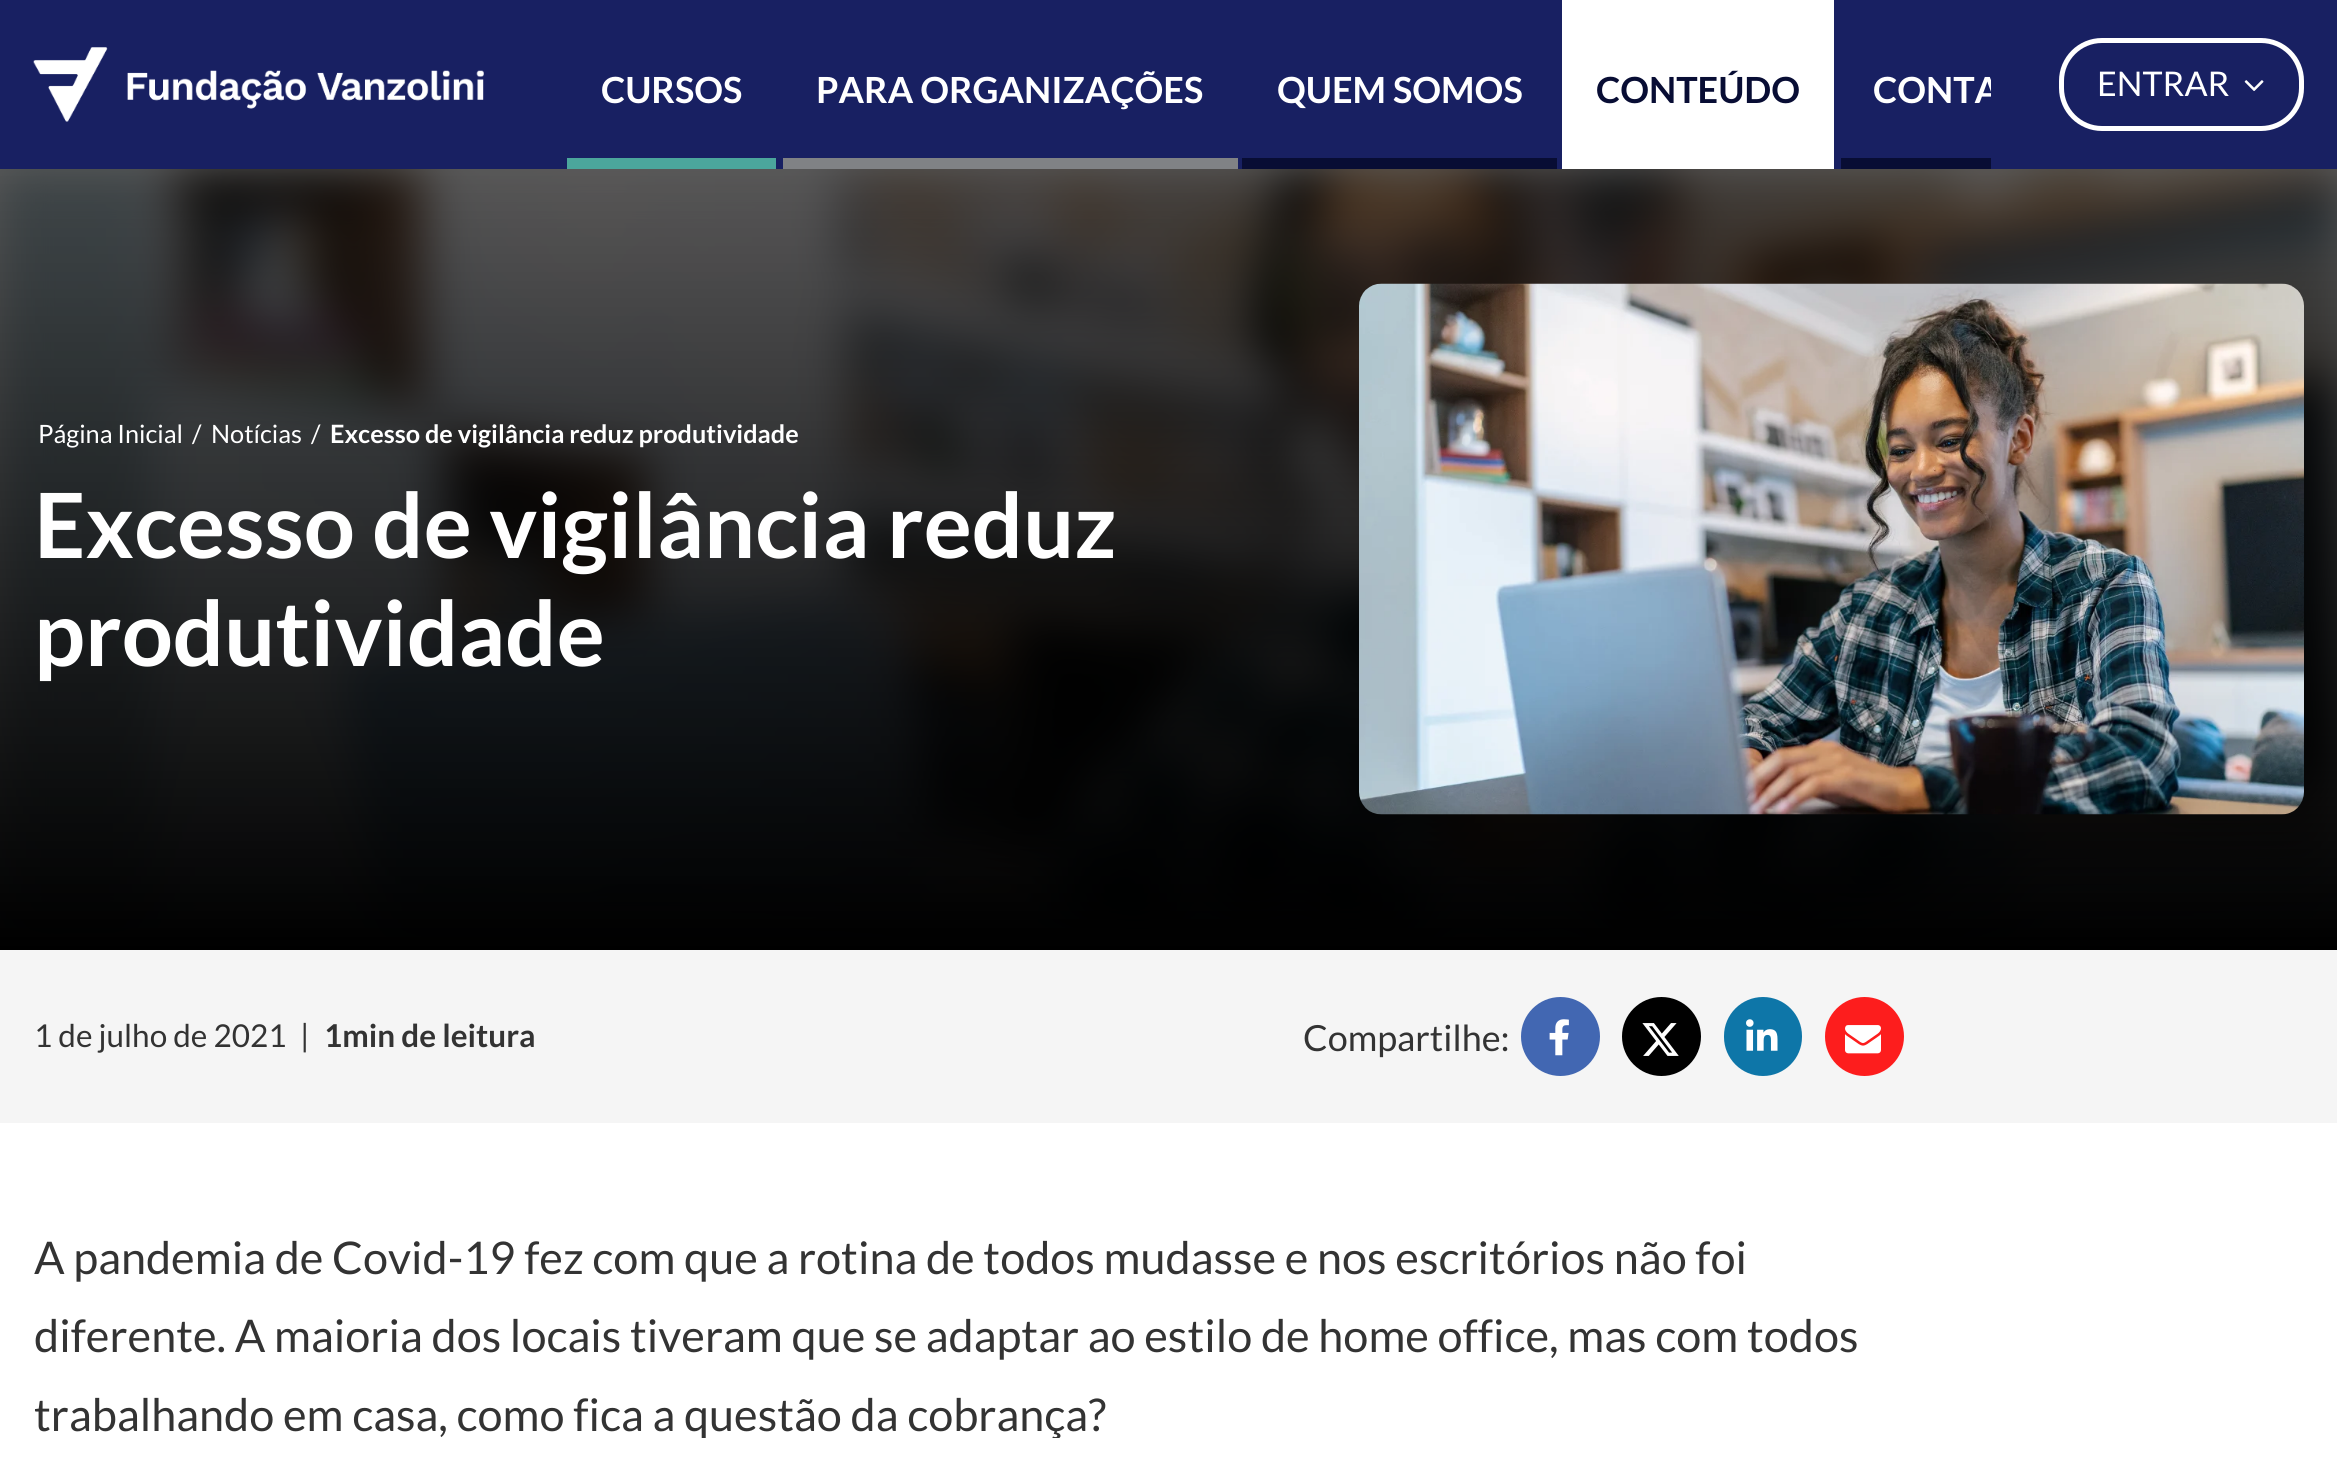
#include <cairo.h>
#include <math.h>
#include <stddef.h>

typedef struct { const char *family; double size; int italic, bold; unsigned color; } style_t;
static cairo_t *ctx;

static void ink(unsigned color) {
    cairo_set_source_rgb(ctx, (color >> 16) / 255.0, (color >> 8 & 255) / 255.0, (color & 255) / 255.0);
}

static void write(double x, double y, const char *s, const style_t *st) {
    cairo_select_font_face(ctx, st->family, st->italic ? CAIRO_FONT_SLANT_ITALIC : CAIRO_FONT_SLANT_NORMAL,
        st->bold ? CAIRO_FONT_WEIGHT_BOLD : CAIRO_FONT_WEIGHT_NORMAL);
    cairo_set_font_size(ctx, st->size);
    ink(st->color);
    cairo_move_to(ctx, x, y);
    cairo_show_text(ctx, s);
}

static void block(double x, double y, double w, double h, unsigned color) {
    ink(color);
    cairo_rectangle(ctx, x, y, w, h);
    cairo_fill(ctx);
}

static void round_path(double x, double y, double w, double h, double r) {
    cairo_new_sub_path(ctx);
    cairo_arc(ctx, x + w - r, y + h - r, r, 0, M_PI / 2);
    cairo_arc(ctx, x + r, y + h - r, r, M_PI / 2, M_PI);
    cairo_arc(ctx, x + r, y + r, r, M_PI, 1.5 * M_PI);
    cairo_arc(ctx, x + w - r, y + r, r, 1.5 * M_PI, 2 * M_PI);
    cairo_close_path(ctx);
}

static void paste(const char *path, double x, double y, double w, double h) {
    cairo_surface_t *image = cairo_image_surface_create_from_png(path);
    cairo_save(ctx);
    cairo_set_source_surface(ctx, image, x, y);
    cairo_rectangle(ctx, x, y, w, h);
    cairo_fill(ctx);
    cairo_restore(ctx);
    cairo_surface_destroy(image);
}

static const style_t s1 = {"Lato", 36, 0, 1, 0xffffff};
static const style_t s2 = {"Lato", 36, 0, 1, 0x080d34};
static const style_t s3 = {"Lato", 34, 0, 0, 0xffffff};
static const style_t s4 = {"Lato", 25.25, 0, 0, 0xffffff};
static const style_t s5 = {"Lato", 25.25, 0, 1, 0xffffff};
static const style_t s6 = {"Lato", 90, 0, 1, 0xffffff};
static const style_t s7 = {"Lato", 31.5, 0, 0, 0x333333};
static const style_t s8 = {"Lato", 31.5, 0, 1, 0x333333};
static const style_t s9 = {"Lato", 36, 0, 0, 0x333333};
static const style_t s10 = {"Lato", 45, 0, 0, 0x333333};

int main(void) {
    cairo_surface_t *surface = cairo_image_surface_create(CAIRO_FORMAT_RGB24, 2337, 1460);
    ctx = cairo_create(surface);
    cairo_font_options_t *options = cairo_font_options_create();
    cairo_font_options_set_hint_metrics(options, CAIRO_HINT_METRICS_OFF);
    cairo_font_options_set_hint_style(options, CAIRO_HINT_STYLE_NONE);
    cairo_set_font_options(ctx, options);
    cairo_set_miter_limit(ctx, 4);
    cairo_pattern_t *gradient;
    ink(0xffffff);
    cairo_paint(ctx);
    block(0, 0, 2337, 169, 0x182062);
    paste("pic1.png", 33, 47, 451, 75);
    block(567, 158, 209, 11, 0x4ba69c);
    write(601, 103, "CURSOS", &s1);
    block(783, 158, 455, 11, 0x808285);
    write(816, 103, "PARA ORGANIZAÇÕES", &s1);
    block(1242, 158, 315, 11, 0x080d34);
    write(1277, 103, "QUEM SOMOS", &s1);
    block(1562, 0, 272, 169, 0xffffff);
    write(1596, 103, "CONTEÚDO", &s2);
    block(1841, 158, 150, 11, 0x080d34);
    cairo_save(ctx);
    cairo_rectangle(ctx, 567, 0, 1424, 169);
    cairo_clip(ctx);
    write(1873, 103, "CONTA", &s1);
    cairo_restore(ctx);
    round_path(2061.5, 40.5, 240, 88, 40.5);
    ink(0xffffff);
    cairo_set_line_width(ctx, 5);
    cairo_stroke(ctx);
    write(2097, 96, "ENTRAR", &s3);
    paste("pic2.png", 2244, 80, 20, 11);
    paste("pic3.png", 0, 169, 2337, 768);
    gradient = cairo_pattern_create_linear(1169, 950, 1169, 169);
    cairo_pattern_add_color_stop_rgba(gradient, 0, 0, 0, 0, 1);
    cairo_pattern_add_color_stop_rgba(gradient, 1, 0, 0, 0, 0.65);
    cairo_set_source(ctx, gradient);
    cairo_pattern_destroy(gradient);
    cairo_rectangle(ctx, 0, 169, 2337, 781);
    cairo_fill(ctx);
    write(38, 443, "Página Inicial", &s4);
    write(192, 443, "/", &s4);
    write(211, 443, "Notícias", &s4);
    write(311, 443, "/", &s4);
    write(330, 443, "Excesso de vigilância reduz produtividade", &s5);
    write(34, 558, "Excesso de vigilância reduz", &s6);
    write(34, 666, "produtividade", &s6);
    paste("pic4.png", 1359, 283, 945, 532);
    block(0, 950, 2337, 173, 0xf5f5f5);
    write(34, 1047, "1 de julho de 2021", &s7);
    write(300, 1047, "|", &s7);
    write(324, 1047, "1min de leitura", &s8);
    write(1303, 1051, "Compartilhe:", &s9);
    ink(0x4267b2);
    cairo_new_path(ctx);
    cairo_arc(ctx, 1560.5, 1036.5, 39.5, 0, 2 * M_PI);
    cairo_fill(ctx);
    paste("pic5.png", 1549, 1019, 20, 37);
    ink(0x000000);
    cairo_arc(ctx, 1661.5, 1036.5, 39.5, 0, 2 * M_PI);
    cairo_fill(ctx);
    paste("pic6.png", 1642, 1023, 37, 33);
    ink(0x0e76a8);
    round_path(1724, 997, 78, 79, 39);
    cairo_fill(ctx);
    paste("pic7.png", 1746, 1019, 32, 32);
    ink(0xfd1d1d);
    cairo_arc(ctx, 1864.5, 1036.5, 39.5, 0, 2 * M_PI);
    cairo_fill(ctx);
    paste("pic8.png", 1845, 1025, 36, 29);
    write(34, 1274, "A pandemia de Covid-19 fez com que a rotina de todos mudasse e nos escritórios não foi", &s10);
    write(34, 1352, "diferente. A maioria dos locais tiveram que se adaptar ao estilo de home office, mas com todos", &s10);
    write(34, 1431, "trabalhando em casa, como fica a questão da cobrança?", &s10);
    block(701, 1438, 358, 1, 0xffffff);
    cairo_surface_write_to_png(surface, "screenshot.png");
    cairo_font_options_destroy(options);
    cairo_destroy(ctx);
    cairo_surface_destroy(surface);
    return 0;
}
